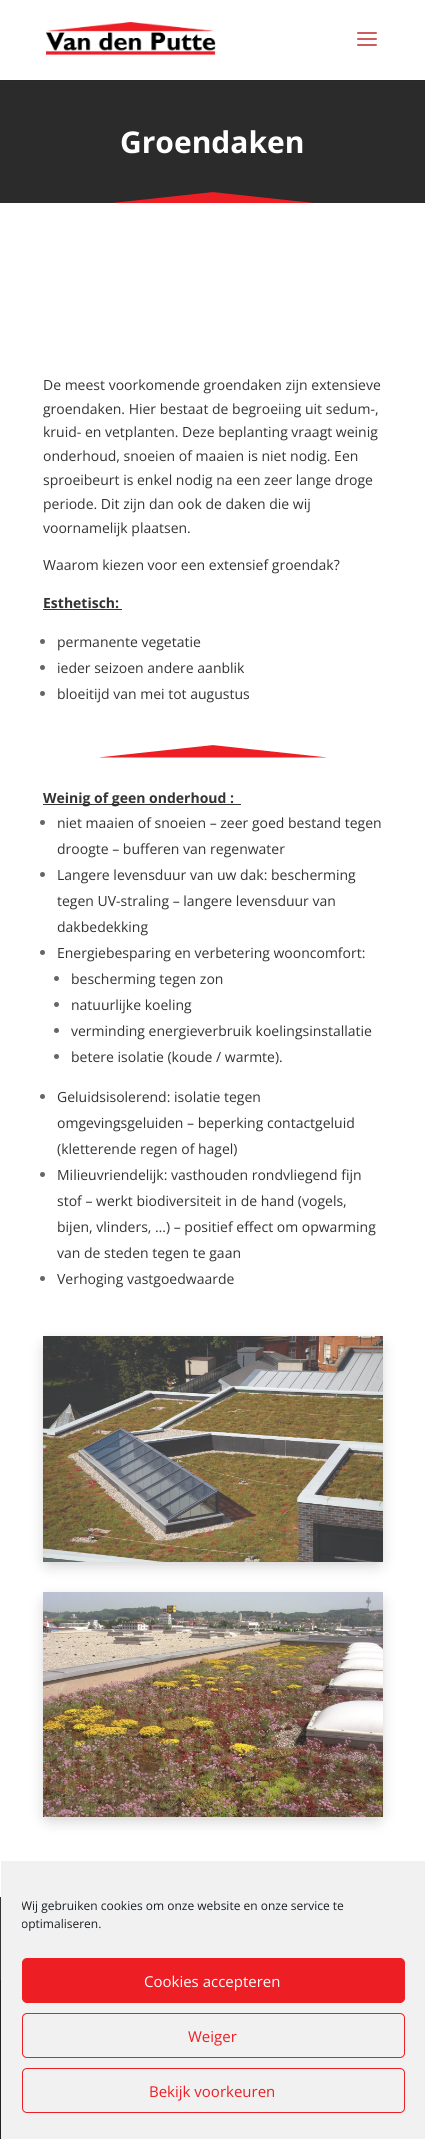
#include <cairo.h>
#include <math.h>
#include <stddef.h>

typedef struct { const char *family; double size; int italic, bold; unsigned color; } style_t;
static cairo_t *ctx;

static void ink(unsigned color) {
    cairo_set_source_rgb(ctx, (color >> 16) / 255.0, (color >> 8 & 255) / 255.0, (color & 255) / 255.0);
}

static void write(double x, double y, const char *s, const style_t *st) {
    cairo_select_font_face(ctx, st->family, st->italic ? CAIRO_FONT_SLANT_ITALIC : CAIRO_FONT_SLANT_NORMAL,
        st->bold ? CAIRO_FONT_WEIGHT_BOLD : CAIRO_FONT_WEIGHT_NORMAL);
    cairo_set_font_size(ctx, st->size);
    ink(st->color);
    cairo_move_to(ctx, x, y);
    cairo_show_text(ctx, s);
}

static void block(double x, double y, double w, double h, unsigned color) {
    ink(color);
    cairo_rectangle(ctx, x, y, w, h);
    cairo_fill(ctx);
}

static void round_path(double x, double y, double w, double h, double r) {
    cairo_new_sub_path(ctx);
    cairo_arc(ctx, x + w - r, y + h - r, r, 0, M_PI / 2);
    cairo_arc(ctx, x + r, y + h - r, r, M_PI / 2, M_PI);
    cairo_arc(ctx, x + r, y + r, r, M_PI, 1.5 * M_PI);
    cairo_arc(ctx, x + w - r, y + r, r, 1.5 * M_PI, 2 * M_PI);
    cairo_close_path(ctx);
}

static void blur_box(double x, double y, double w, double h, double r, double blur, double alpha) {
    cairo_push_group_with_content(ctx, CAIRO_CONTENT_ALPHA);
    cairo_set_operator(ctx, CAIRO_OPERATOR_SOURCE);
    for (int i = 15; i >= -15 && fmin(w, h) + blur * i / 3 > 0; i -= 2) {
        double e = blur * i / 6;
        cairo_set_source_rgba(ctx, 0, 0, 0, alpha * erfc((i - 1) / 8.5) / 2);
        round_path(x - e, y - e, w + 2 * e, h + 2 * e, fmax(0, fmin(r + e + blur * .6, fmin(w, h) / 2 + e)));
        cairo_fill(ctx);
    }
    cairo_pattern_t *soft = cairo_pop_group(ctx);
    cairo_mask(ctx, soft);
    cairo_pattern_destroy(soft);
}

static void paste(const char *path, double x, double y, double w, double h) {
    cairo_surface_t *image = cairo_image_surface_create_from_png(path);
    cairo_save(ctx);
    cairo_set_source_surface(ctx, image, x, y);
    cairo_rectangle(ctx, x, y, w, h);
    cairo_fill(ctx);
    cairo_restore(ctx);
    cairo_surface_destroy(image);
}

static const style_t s1 = {"Open Sans", 30, 0, 1, 0xffffff};
static const style_t s2 = {"Open Sans", 14, 0, 0, 0x333333};
static const style_t s3 = {"Open Sans", 14, 0, 1, 0x333333};
static const style_t s4 = {"Open Sans", 12, 0, 0, 0x191e23};
static const style_t s5 = {"Open Sans", 15, 0, 0, 0xffffff};
static const style_t s6 = {"Open Sans", 15, 0, 0, 0xed1e24};

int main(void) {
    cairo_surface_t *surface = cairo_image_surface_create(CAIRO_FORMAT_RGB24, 425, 2139);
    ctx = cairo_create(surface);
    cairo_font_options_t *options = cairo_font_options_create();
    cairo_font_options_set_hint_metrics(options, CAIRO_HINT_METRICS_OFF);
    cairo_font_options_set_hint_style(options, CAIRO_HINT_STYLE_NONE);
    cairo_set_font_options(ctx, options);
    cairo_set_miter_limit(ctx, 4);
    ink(0x212121);
    cairo_paint(ctx);
    block(0, 80, 425, 1, 0x272727);
    block(0, 0, 425, 80, 0xffffff);
    paste("pic1.png", 46, 22, 170, 33);
    paste("pic2.png", 357, 32, 20, 14);
    block(0, 81, 425, 122, 0x2b2b2b);
    paste("pic3.png", 113, 192, 200, 11);
    write(120, 153, "Groendaken", &s1);
    block(0, 203, 425, 1694, 0xffffff);
    write(43, 390, "De meest voorkomende groendaken zijn extensieve", &s2);
    write(43, 414, "groendaken. Hier bestaat de begroeiing uit sedum-,", &s2);
    write(43, 437, "kruid- en vetplanten. Deze beplanting vraagt weinig", &s2);
    write(43, 461, "onderhoud, snoeien of maaien is niet nodig. Een", &s2);
    write(43, 485, "sproeibeurt is enkel nodig na een zeer lange droge", &s2);
    write(43, 509, "periode. Dit zijn dan ook de daken die wij", &s2);
    write(43, 533, "voornamelijk plaatsen.", &s2);
    write(43, 570, "Waarom kiezen voor een extensief groendak?", &s2);
    write(43, 608, "Esthetisch:", &s3);
    block(43, 609, 79, 1, 0x333333);
    ink(0x666666);
    cairo_new_path(ctx);
    cairo_arc(ctx, 42.5, 641.5, 2.5, 0, 2 * M_PI);
    cairo_fill(ctx);
    write(57, 647, "permanente vegetatie", &s2);
    ink(0x666666);
    cairo_new_path(ctx);
    cairo_arc(ctx, 42.5, 667.5, 2.5, 0, 2 * M_PI);
    cairo_fill(ctx);
    write(57, 673, "ieder seizoen andere aanblik", &s2);
    ink(0x666666);
    cairo_new_path(ctx);
    cairo_arc(ctx, 42.5, 693.5, 2.5, 0, 2 * M_PI);
    cairo_fill(ctx);
    write(57, 699, "bloeitijd van mei tot augustus", &s2);
    paste("pic4.png", 99, 745, 227, 13);
    block(43, 804, 198, 1, 0x333333);
    write(43, 803, "Weinig of geen onderhoud :", &s3);
    ink(0x666666);
    cairo_new_path(ctx);
    cairo_arc(ctx, 42.5, 822.5, 2.5, 0, 2 * M_PI);
    cairo_fill(ctx);
    write(57, 828, "niet maaien of snoeien – zeer goed bestand tegen", &s2);
    write(57, 854, "droogte – bufferen van regenwater", &s2);
    ink(0x666666);
    cairo_new_path(ctx);
    cairo_arc(ctx, 42.5, 874.5, 2.5, 0, 2 * M_PI);
    cairo_fill(ctx);
    write(57, 880, "Langere levensduur van uw dak: bescherming", &s2);
    write(57, 906, "tegen UV-straling – langere levensduur van", &s2);
    write(57, 932, "dakbedekking", &s2);
    ink(0x666666);
    cairo_new_path(ctx);
    cairo_arc(ctx, 42.5, 952.5, 2.5, 0, 2 * M_PI);
    cairo_fill(ctx);
    write(57, 958, "Energiebesparing en verbetering wooncomfort:", &s2);
    ink(0x666666);
    cairo_new_path(ctx);
    cairo_arc(ctx, 56.5, 978.5, 2.5, 0, 2 * M_PI);
    cairo_fill(ctx);
    write(71, 984, "bescherming tegen zon", &s2);
    ink(0x666666);
    cairo_new_path(ctx);
    cairo_arc(ctx, 56.5, 1004.5, 2.5, 0, 2 * M_PI);
    cairo_fill(ctx);
    write(71, 1010, "natuurlijke koeling", &s2);
    ink(0x666666);
    cairo_new_path(ctx);
    cairo_arc(ctx, 56.5, 1030.5, 2.5, 0, 2 * M_PI);
    cairo_fill(ctx);
    write(71, 1036, "verminding energieverbruik koelingsinstallatie", &s2);
    ink(0x666666);
    cairo_new_path(ctx);
    cairo_arc(ctx, 56.5, 1056.5, 2.5, 0, 2 * M_PI);
    cairo_fill(ctx);
    write(71, 1062, "betere isolatie (koude / warmte).", &s2);
    ink(0x666666);
    cairo_new_path(ctx);
    cairo_arc(ctx, 42.5, 1096.5, 2.5, 0, 2 * M_PI);
    cairo_fill(ctx);
    write(57, 1102, "Geluidsisolerend: isolatie tegen", &s2);
    write(57, 1128, "omgevingsgeluiden – beperking contactgeluid", &s2);
    write(57, 1154, "(kletterende regen of hagel)", &s2);
    ink(0x666666);
    cairo_new_path(ctx);
    cairo_arc(ctx, 42.5, 1174.5, 2.5, 0, 2 * M_PI);
    cairo_fill(ctx);
    write(57, 1180, "Milieuvriendelijk: vasthouden rondvliegend fijn", &s2);
    write(57, 1206, "stof – werkt biodiversiteit in de hand (vogels,", &s2);
    write(57, 1232, "bijen, vlinders, …) – positief effect om opwarming", &s2);
    write(57, 1258, "van de steden tegen te gaan", &s2);
    ink(0x666666);
    cairo_new_path(ctx);
    cairo_arc(ctx, 42.5, 1278.5, 2.5, 0, 2 * M_PI);
    cairo_fill(ctx);
    write(57, 1284, "Verhoging vastgoedwaarde", &s2);
    ink(0x000000);
    blur_box(49, 1347, 328, 214, 0, 9, 0.3);
    paste("pic5.png", 43, 1336, 340, 226);
    blur_box(49, 1603, 328, 213, 0, 9, 0.3);
    paste("pic6.png", 43, 1592, 340, 225);
    block(0, 1897, 1, 83, 0x333333);
    block(1, 1861, 424, 278, 0xf1f1f1);
    cairo_save(ctx);
    cairo_rectangle(ctx, 22, 1897, 383, 41);
    cairo_clip(ctx);
    write(21, 1910, "Wij gebruiken cookies om onze website en onze service te", &s4);
    write(21, 1928, "optimaliseren.", &s4);
    cairo_restore(ctx);
    ink(0xed1e24);
    round_path(22.5, 1958.5, 382, 44, 4.5);
    cairo_fill_preserve(ctx);
    cairo_set_line_width(ctx, 1);
    cairo_stroke(ctx);
    write(144, 1987, "Cookies accepteren", &s5);
    round_path(22.5, 2013.5, 382, 44, 4.5);
    ink(0xed1e24);
    cairo_stroke(ctx);
    write(188, 2042, "Weiger", &s6);
    round_path(22.5, 2068.5, 382, 44, 4.5);
    cairo_stroke(ctx);
    write(149, 2097, "Bekijk voorkeuren", &s6);
    cairo_surface_write_to_png(surface, "screenshot.png");
    cairo_font_options_destroy(options);
    cairo_destroy(ctx);
    cairo_surface_destroy(surface);
    return 0;
}
